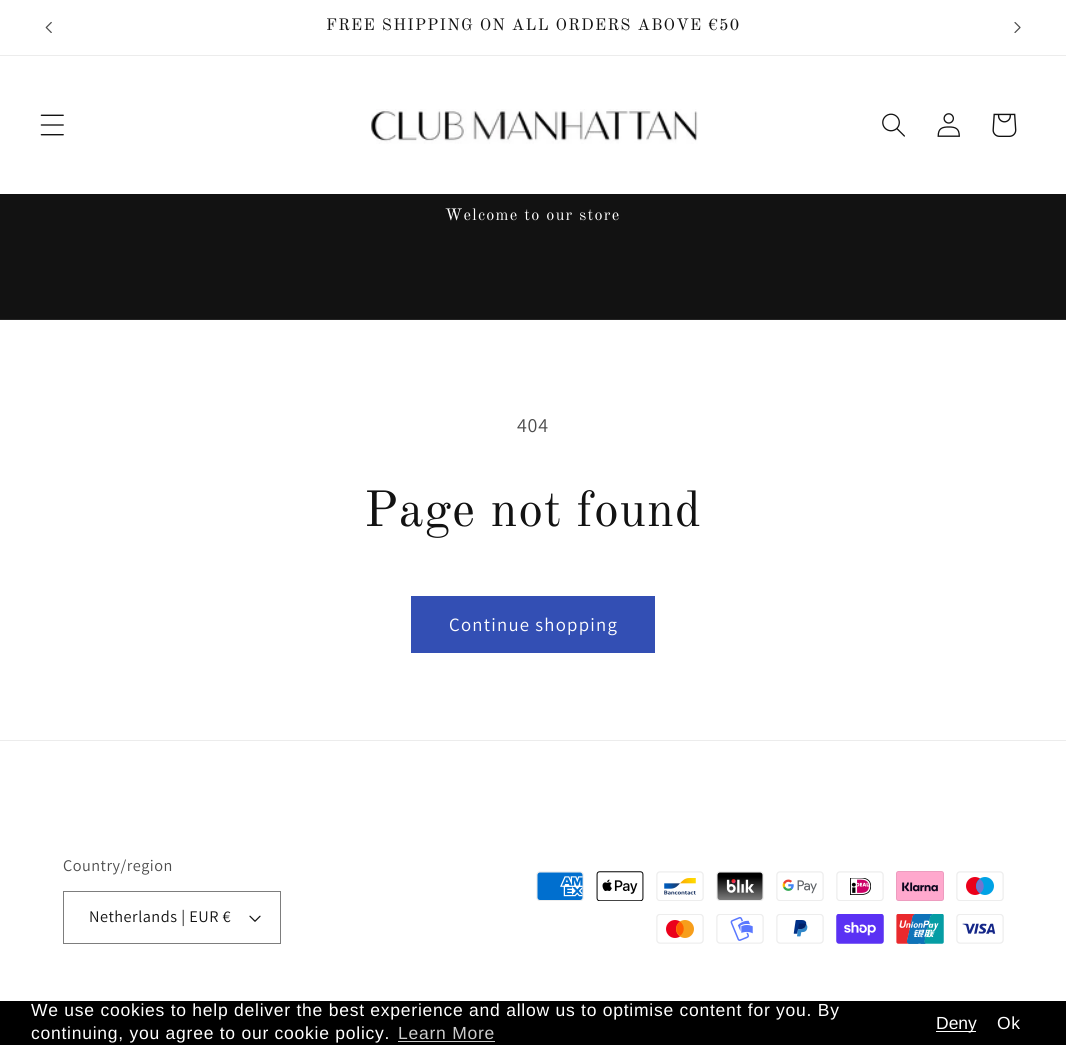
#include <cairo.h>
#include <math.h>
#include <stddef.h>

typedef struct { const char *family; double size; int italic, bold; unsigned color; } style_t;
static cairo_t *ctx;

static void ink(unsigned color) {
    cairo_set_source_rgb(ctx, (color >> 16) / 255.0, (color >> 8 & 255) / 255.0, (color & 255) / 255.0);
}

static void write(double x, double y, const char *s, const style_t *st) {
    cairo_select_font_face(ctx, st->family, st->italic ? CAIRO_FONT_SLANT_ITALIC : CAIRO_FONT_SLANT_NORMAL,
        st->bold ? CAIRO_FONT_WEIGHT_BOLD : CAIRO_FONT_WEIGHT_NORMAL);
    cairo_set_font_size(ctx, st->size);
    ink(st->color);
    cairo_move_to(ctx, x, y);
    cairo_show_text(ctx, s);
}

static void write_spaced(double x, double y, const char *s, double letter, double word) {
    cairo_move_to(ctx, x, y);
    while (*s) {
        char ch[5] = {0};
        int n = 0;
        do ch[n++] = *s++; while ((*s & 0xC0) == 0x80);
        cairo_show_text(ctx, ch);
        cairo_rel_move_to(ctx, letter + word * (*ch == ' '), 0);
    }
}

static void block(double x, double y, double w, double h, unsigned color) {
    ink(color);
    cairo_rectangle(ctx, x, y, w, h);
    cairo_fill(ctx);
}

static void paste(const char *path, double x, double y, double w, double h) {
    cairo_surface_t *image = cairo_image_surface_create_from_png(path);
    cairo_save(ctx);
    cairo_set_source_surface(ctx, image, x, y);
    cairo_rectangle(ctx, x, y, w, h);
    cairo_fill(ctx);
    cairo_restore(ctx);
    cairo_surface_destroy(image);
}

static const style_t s1 = {"Liberation Sans", 17.5, 0, 0, 0xffffff};

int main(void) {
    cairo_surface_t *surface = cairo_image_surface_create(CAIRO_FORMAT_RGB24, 1066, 1062);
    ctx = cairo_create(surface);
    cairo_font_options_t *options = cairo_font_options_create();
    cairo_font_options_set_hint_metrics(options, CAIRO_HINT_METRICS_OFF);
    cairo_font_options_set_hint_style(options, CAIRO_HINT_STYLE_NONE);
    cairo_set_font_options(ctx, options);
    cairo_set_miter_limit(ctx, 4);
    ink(0xffffff);
    cairo_paint(ctx);
    block(0, 55, 1066, 1, 0xececec);
    paste("pic1.png", 45, 21, 7, 12);
    cairo_select_font_face(ctx, "Old Standard TT", CAIRO_FONT_SLANT_NORMAL, CAIRO_FONT_WEIGHT_NORMAL);
    cairo_set_font_size(ctx, 16.25);
    ink(0x121212);
    write_spaced(326, 30, "FREE SHIPPING ON ALL ORDERS ABOVE €50", 1.25, 0);
    paste("pic2.png", 1014, 22, 7, 11);
    paste("pic3.png", 40, 114, 24, 22);
    paste("pic4.png", 371, 109, 327, 35);
    paste("pic5.png", 882, 113, 23, 24);
    paste("pic6.png", 937, 113, 23, 24);
    paste("pic7.png", 992, 113, 25, 24);
    block(0, 194, 1066, 125, 0x121212);
    block(0, 319, 1066, 1, 0x252525);
    ink(0xffffff);
    write_spaced(445, 220, "Welcome to our store", 1.25, 0);
    cairo_select_font_face(ctx, "Assistant", CAIRO_FONT_SLANT_NORMAL, CAIRO_FONT_WEIGHT_NORMAL);
    cairo_set_font_size(ctx, 20);
    ink(0x4d4d4d);
    write_spaced(517, 432, "404", 0.75, 0);
    cairo_select_font_face(ctx, "Old Standard TT", CAIRO_FONT_SLANT_NORMAL, CAIRO_FONT_WEIGHT_NORMAL);
    cairo_set_font_size(ctx, 50);
    ink(0x121212);
    write_spaced(364, 526, "Page not found", 0.75, 0);
    block(411, 596, 244, 57, 0x334fb4);
    cairo_select_font_face(ctx, "Assistant", CAIRO_FONT_SLANT_NORMAL, CAIRO_FONT_WEIGHT_NORMAL);
    cairo_set_font_size(ctx, 18.75);
    ink(0xffffff);
    write_spaced(449, 631, "Continue shopping", 1.25, 0);
    block(0, 740, 1066, 1, 0xececec);
    cairo_set_font_size(ctx, 16.25);
    ink(0x4d4d4d);
    write_spaced(63, 871, "Country/region", 0.5, 0);
    paste("pic8.png", 249, 915, 12, 7);
    cairo_rectangle(ctx, 63.5, 891.5, 217, 52);
    ink(0x7d7d7d);
    cairo_set_line_width(ctx, 1);
    cairo_stroke(ctx);
    ink(0x121212);
    write_spaced(89, 922, "Netherlands | EUR €", 0.5, 0);
    paste("pic9.png", 536, 871, 48, 30);
    paste("pic10.png", 596, 871, 48, 30);
    paste("pic11.png", 656, 871, 48, 30);
    paste("pic12.png", 716, 871, 48, 30);
    paste("pic13.png", 776, 871, 48, 30);
    paste("pic14.png", 836, 871, 48, 30);
    paste("pic15.png", 896, 871, 48, 30);
    paste("pic16.png", 956, 871, 48, 30);
    paste("pic17.png", 656, 914, 48, 30);
    paste("pic18.png", 716, 914, 48, 30);
    paste("pic19.png", 776, 914, 48, 30);
    paste("pic20.png", 836, 914, 48, 30);
    paste("pic21.png", 896, 914, 48, 30);
    paste("pic22.png", 956, 914, 48, 30);
    block(0, 1001, 1066, 44, 0x000000);
    cairo_select_font_face(ctx, "Liberation Sans", CAIRO_FONT_SLANT_NORMAL, CAIRO_FONT_WEIGHT_NORMAL);
    cairo_set_font_size(ctx, 17.5);
    ink(0xffffff);
    write_spaced(31, 1016, "We use cookies to help deliver the best experience and allow us to optimise content for you. By", 0.75, 0);
    write_spaced(31, 1039, "continuing, you agree to our cookie policy.", 0.75, 0);
    ink(0xcccccc);
    write_spaced(398, 1039, "Learn More", 0.75, 0);
    block(398, 1041, 97, 1, 0xcccccc);
    block(936, 1031, 40, 1, 0xffffff);
    write(936, 1029, "Deny", &s1);
    write_spaced(997, 1029, "Ok", 0.75, 0);
    cairo_surface_write_to_png(surface, "screenshot.png");
    cairo_font_options_destroy(options);
    cairo_destroy(ctx);
    cairo_surface_destroy(surface);
    return 0;
}
